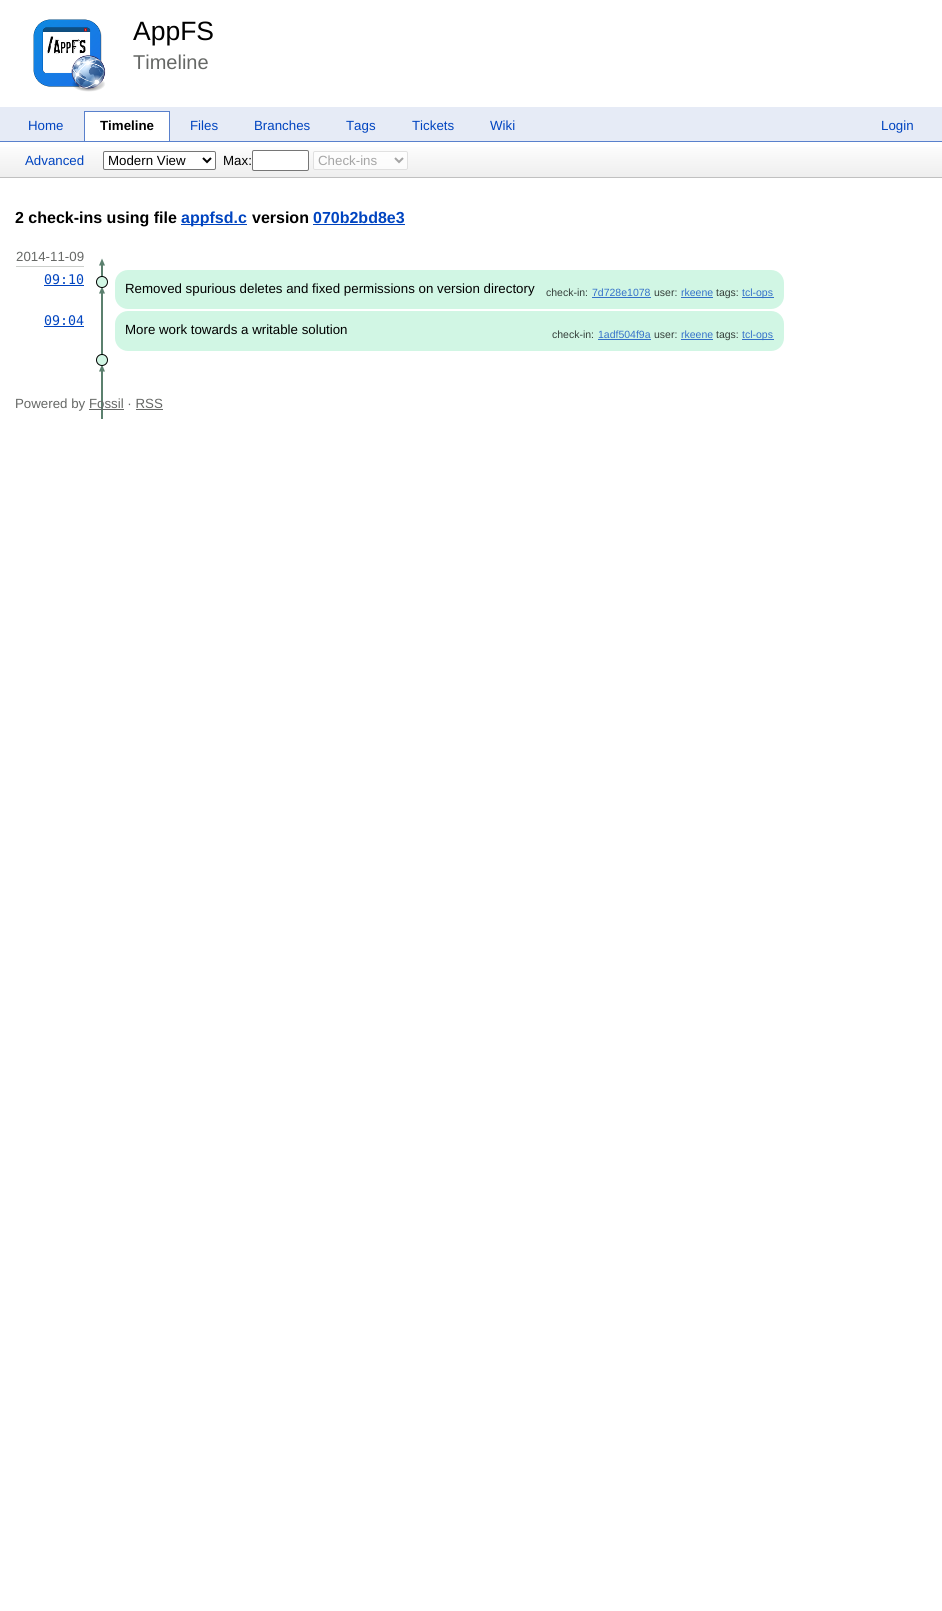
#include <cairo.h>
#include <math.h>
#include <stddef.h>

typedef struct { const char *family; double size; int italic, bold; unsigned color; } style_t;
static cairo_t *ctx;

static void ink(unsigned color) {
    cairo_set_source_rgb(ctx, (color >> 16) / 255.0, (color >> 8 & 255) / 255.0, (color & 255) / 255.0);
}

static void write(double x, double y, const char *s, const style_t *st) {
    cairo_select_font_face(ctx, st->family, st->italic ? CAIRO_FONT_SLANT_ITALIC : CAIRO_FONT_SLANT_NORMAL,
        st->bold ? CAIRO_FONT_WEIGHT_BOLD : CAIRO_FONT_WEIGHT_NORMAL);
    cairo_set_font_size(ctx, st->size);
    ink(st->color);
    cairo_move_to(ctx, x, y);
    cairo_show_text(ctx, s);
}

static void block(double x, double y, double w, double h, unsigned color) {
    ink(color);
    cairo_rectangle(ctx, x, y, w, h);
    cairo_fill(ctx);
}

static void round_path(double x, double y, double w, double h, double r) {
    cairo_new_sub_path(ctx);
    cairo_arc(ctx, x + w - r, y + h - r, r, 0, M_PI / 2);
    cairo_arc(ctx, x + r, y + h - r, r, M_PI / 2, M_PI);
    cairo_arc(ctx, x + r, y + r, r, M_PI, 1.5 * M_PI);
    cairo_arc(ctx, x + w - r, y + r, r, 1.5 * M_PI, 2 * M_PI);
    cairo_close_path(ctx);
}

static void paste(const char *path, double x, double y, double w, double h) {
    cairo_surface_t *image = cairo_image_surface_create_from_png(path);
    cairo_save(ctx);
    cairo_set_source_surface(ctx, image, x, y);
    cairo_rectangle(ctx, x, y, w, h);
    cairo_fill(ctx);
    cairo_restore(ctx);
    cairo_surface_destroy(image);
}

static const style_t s1 = {"Liberation Sans", 26.5, 0, 0, 0x000000};
static const style_t s2 = {"Liberation Sans", 20, 0, 0, 0x666866};
static const style_t s3 = {"Liberation Sans", 13.3, 0, 0, 0x0044c0};
static const style_t s4 = {"Liberation Sans", 13.3, 0, 1, 0x000000};
static const style_t s5 = {"Liberation Sans", 13.3, 0, 0, 0x000000};
static const style_t s6 = {"Liberation Sans", 13.3, 0, 0, 0xa5a5a5};
static const style_t s7 = {"Liberation Sans", 16, 0, 1, 0x000000};
static const style_t s8 = {"Liberation Sans", 16, 0, 1, 0x0044c0};
static const style_t s9 = {"Liberation Sans", 13.3, 0, 0, 0x666866};
static const style_t s10 = {"DejaVu Sans Mono", 13.3, 0, 0, 0x0044c0};
static const style_t s11 = {"Liberation Sans", 10.5, 0, 0, 0x343e39};
static const style_t s12 = {"Liberation Sans", 10.5, 0, 0, 0x3471c9};

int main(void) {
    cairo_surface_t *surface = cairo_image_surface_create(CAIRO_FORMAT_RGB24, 942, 1611);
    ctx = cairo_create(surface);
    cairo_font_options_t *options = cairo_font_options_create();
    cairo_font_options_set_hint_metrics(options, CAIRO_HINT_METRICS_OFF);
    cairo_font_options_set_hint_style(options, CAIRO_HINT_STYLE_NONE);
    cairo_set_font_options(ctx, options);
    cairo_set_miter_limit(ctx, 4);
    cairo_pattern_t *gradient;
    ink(0xffffff);
    cairo_paint(ctx);
    paste("pic1.png", 33, 19, 73, 73);
    write(133, 40, "AppFS", &s1);
    write(133, 69, "Timeline", &s2);
    block(0, 107, 942, 34, 0xe6ebf6);
    block(0, 141, 942, 1, 0x5980cc);
    write(28, 130, "Home", &s3);
    block(85, 112, 84, 29, 0xffffff);
    write(100, 130, "Timeline", &s4);
    block(84, 111, 86, 1, 0x5980cc);
    block(169, 111, 1, 30, 0x5980cc);
    block(84, 111, 1, 30, 0x5980cc);
    write(190, 130, "Files", &s3);
    write(254, 130, "Branches", &s3);
    write(346, 130, "Tags", &s3);
    write(412, 130, "Tickets", &s3);
    write(490, 130, "Wiki", &s3);
    write(881, 130, "Login", &s3);
    gradient = cairo_pattern_create_linear(0, 177, 0, 142);
    cairo_pattern_add_color_stop_rgba(gradient, 0, 0.933, 0.933, 0.933, 1);
    cairo_pattern_add_color_stop_rgba(gradient, 1, 1, 1, 1, 1);
    cairo_set_source(ctx, gradient);
    cairo_pattern_destroy(gradient);
    cairo_rectangle(ctx, 0, 147, 942, 30);
    cairo_fill(ctx);
    block(0, 177, 942, 1, 0xc0c0c0);
    write(25, 165, "Advanced", &s3);
    ink(0xffffff);
    round_path(103.5, 151.5, 112, 18, 1.5);
    cairo_fill_preserve(ctx);
    ink(0x767676);
    cairo_set_line_width(ctx, 1);
    cairo_stroke(ctx);
    cairo_new_path(ctx);
    cairo_move_to(ctx, 203, 158);
    cairo_line_to(ctx, 207, 162);
    cairo_line_to(ctx, 211, 158);
    ink(0x000000);
    cairo_set_line_width(ctx, 2);
    cairo_stroke(ctx);
    write(108, 165, "Modern View", &s5);
    write(223, 165, "Max:", &s5);
    ink(0xffffff);
    round_path(252.5, 150.5, 56, 20, 1.5);
    cairo_fill_preserve(ctx);
    ink(0x767676);
    cairo_set_line_width(ctx, 1);
    cairo_stroke(ctx);
    cairo_set_source_rgba(ctx, 1, 1, 1, 0.7);
    round_path(313, 151, 95, 19, 2);
    cairo_fill(ctx);
    round_path(313.5, 151.5, 94, 18, 1.5);
    cairo_set_source_rgba(ctx, 0.463, 0.463, 0.463, 0.21);
    cairo_stroke(ctx);
    cairo_new_path(ctx);
    cairo_move_to(ctx, 395, 158);
    cairo_line_to(ctx, 399, 162);
    cairo_line_to(ctx, 403, 158);
    ink(0xa4a4a4);
    cairo_set_line_width(ctx, 2);
    cairo_stroke(ctx);
    write(318, 165, "Check-ins", &s6);
    write(15, 223, "2 check-ins using file", &s7);
    block(181, 224, 66, 1, 0x0044c0);
    write(181, 223, "appfsd.c", &s8);
    write(252, 223, "version", &s7);
    write(313, 223, "070b2bd8e3", &s8);
    block(313, 224, 92, 1, 0x0044c0);
    block(16, 266, 68, 1, 0xcccfcc);
    write(16, 261, "2014-11-09", &s9);
    block(101, 264, 2, 18, 0x5b806e);
    cairo_new_path(ctx);
    cairo_move_to(ctx, 105, 265.5);
    cairo_line_to(ctx, 99, 265.5);
    cairo_line_to(ctx, 102, 258.5);
    cairo_close_path(ctx);
    cairo_fill(ctx);
    block(101, 292, 2, 68, 0x5b806e);
    cairo_new_path(ctx);
    cairo_move_to(ctx, 105, 293.5);
    cairo_line_to(ctx, 99, 293.5);
    cairo_line_to(ctx, 102, 286.5);
    cairo_close_path(ctx);
    cairo_fill(ctx);
    ink(0xd1f6e4);
    cairo_arc(ctx, 102, 282, 5.5, 0, 2 * M_PI);
    cairo_fill_preserve(ctx);
    ink(0x000000);
    cairo_set_line_width(ctx, 1);
    cairo_stroke(ctx);
    block(101, 370, 2, 49, 0x5b806e);
    cairo_new_path(ctx);
    cairo_move_to(ctx, 105, 371.5);
    cairo_line_to(ctx, 99, 371.5);
    cairo_line_to(ctx, 102, 364.5);
    cairo_close_path(ctx);
    cairo_fill(ctx);
    ink(0xd1f6e4);
    cairo_arc(ctx, 102, 360, 5.5, 0, 2 * M_PI);
    cairo_fill_preserve(ctx);
    ink(0x000000);
    cairo_stroke(ctx);
    write(44, 284, "09:10", &s10);
    block(44, 285, 40, 1, 0x0044c0);
    ink(0xd1f6e4);
    round_path(115, 270, 669, 39, 13);
    cairo_fill(ctx);
    write(125, 293, "Removed spurious deletes and fixed permissions on version directory", &s5);
    write(546, 296, "check-in:", &s11);
    write(592, 296, "7d728e1078", &s12);
    block(592, 297, 59, 1, 0x3471c9);
    write(654, 296, "user:", &s11);
    write(681, 296, "rkeene", &s12);
    block(681, 297, 32, 1, 0x3471c9);
    write(716, 296, "tags:", &s11);
    block(742, 297, 32, 1, 0x3471c9);
    write(742, 296, "tcl-ops", &s12);
    write(44, 325, "09:04", &s10);
    block(44, 326, 40, 1, 0x0044c0);
    ink(0xd1f6e4);
    round_path(115, 311, 669, 40, 13);
    cairo_fill(ctx);
    write(125, 334, "More work towards a writable solution", &s5);
    write(552, 338, "check-in:", &s11);
    write(598, 338, "1adf504f9a", &s12);
    block(598, 339, 53, 1, 0x3471c9);
    write(654, 338, "user:", &s11);
    write(681, 338, "rkeene", &s12);
    block(681, 339, 32, 1, 0x3471c9);
    write(716, 338, "tags:", &s11);
    block(742, 339, 32, 1, 0x3471c9);
    write(742, 338, "tcl-ops", &s12);
    write(15, 408, "Powered by Fossil · RSS", &s9);
    block(89, 409, 35, 1, 0x666866);
    block(136, 409, 27, 1, 0x666866);
    cairo_surface_write_to_png(surface, "screenshot.png");
    cairo_font_options_destroy(options);
    cairo_destroy(ctx);
    cairo_surface_destroy(surface);
    return 0;
}
